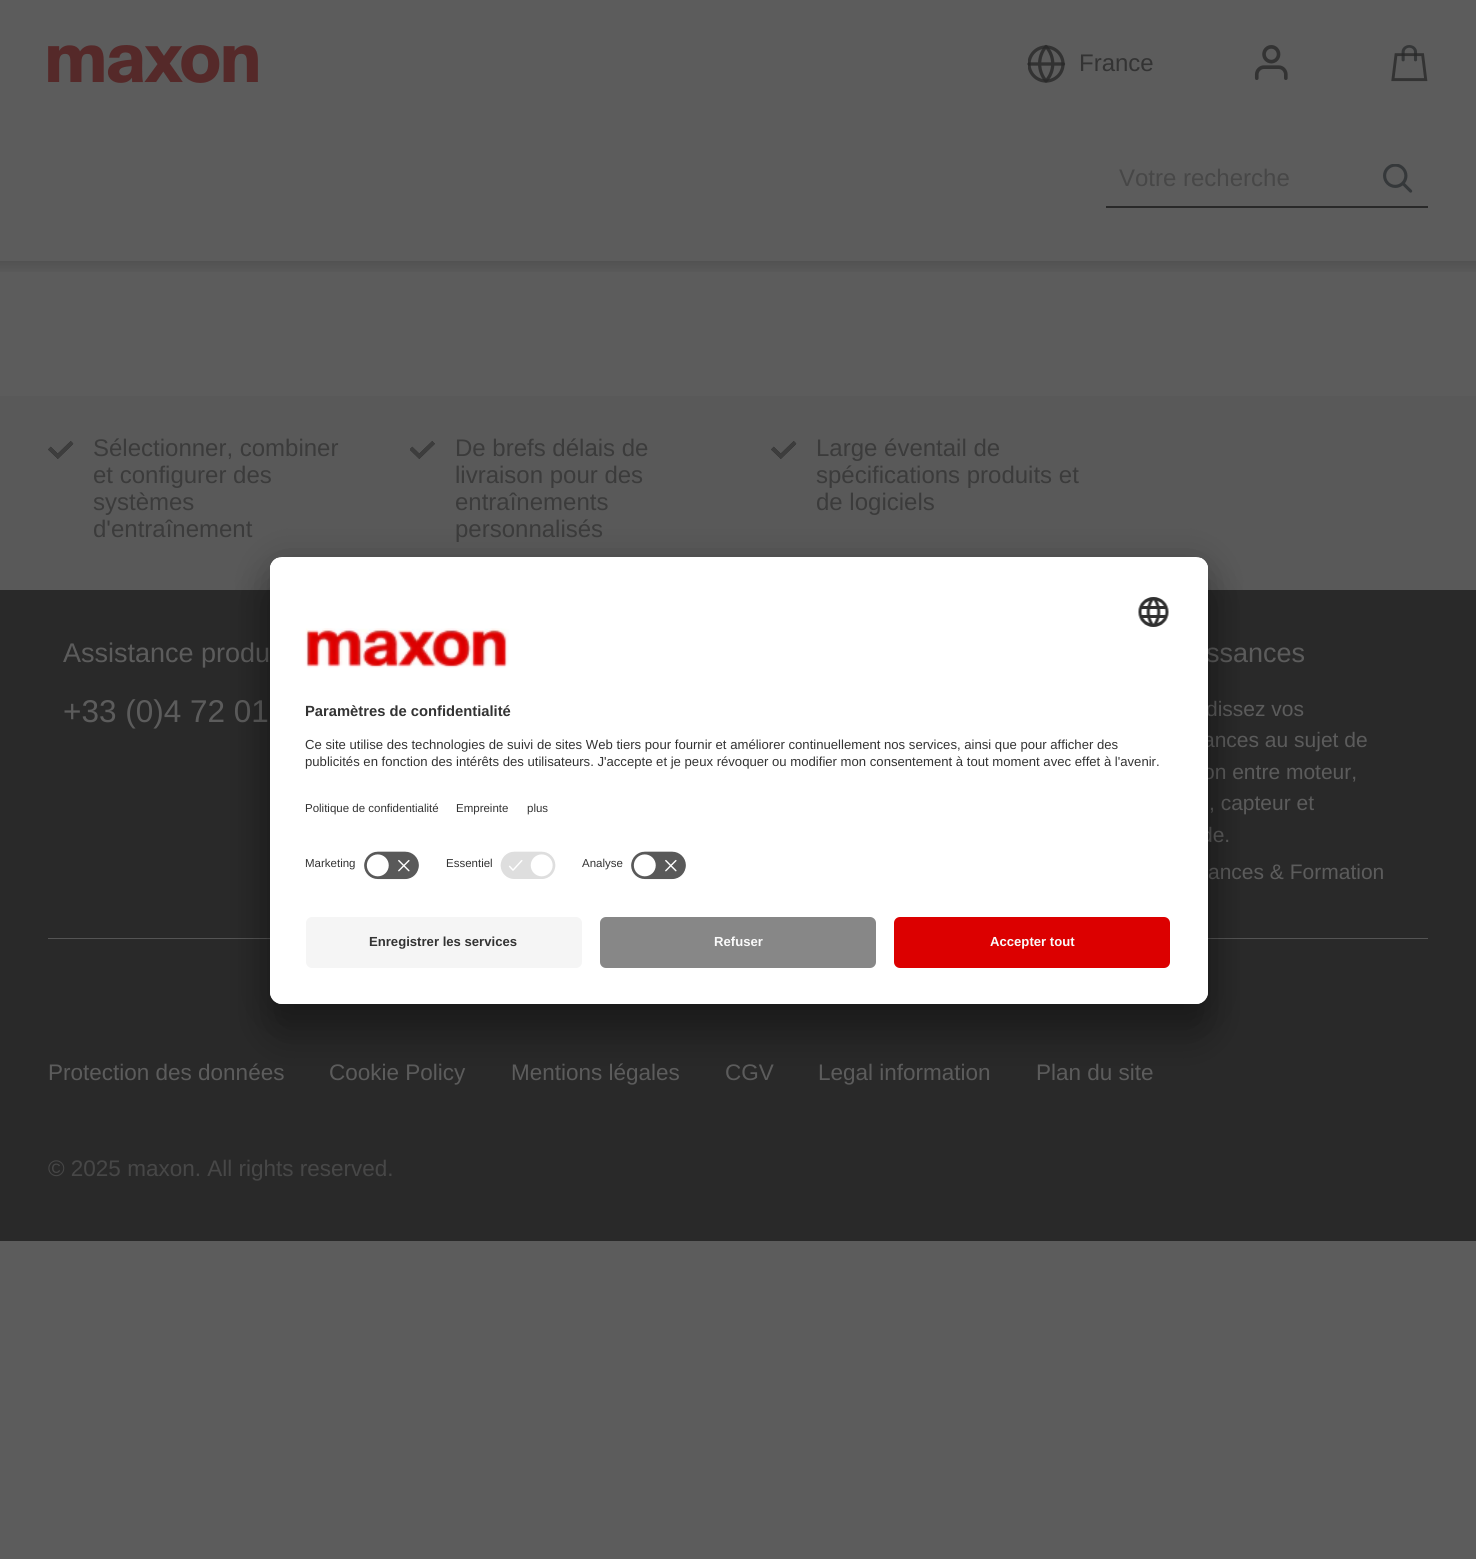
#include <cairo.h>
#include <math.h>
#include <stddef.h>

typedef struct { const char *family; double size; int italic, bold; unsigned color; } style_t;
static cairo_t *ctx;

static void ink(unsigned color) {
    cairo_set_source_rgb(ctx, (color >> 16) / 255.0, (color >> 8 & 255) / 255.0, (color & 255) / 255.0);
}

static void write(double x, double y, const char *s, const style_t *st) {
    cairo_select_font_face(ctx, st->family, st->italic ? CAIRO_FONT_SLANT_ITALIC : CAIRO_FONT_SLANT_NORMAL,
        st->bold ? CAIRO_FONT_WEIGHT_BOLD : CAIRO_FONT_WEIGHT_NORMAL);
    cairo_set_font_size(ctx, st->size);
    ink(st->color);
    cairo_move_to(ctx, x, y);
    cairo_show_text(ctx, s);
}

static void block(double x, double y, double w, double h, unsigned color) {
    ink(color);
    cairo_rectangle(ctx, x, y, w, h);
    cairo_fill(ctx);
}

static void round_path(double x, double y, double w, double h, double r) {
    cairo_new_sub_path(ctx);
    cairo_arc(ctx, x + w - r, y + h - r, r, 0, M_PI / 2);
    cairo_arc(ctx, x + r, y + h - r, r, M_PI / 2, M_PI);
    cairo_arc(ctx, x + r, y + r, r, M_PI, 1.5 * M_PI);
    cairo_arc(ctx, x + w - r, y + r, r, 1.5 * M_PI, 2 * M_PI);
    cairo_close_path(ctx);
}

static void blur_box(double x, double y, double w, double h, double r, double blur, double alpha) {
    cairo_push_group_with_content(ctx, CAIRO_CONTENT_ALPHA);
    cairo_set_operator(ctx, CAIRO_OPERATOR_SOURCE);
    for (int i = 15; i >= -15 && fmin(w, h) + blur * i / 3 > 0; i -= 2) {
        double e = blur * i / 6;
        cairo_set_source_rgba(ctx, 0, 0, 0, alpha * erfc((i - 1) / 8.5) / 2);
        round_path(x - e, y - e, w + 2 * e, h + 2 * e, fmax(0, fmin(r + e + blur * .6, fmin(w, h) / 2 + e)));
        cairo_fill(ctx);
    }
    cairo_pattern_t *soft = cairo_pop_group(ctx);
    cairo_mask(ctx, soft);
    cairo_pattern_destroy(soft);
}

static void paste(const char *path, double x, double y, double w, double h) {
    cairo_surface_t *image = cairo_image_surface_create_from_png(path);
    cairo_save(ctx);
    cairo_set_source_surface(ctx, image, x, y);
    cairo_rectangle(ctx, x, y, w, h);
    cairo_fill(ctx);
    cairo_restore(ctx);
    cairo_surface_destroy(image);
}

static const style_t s1 = {"Liberation Sans", 24, 0, 0, 0x333333};
static const style_t s2 = {"Liberation Sans", 24, 0, 0, 0x474747};
static const style_t s3 = {"Liberation Sans", 24, 0, 0, 0x3b3b3b};
static const style_t s4 = {"Liberation Sans", 27, 0, 0, 0x5c5c5c};
static const style_t s5 = {"Liberation Sans", 31.5, 0, 0, 0x5c5c5c};
static const style_t s6 = {"Liberation Sans", 21, 0, 0, 0x5c5c5c};
static const style_t s7 = {"Liberation Sans", 14.75, 0, 1, 0x333333};
static const style_t s8 = {"Liberation Sans", 13.12, 0, 0, 0x333333};
static const style_t s9 = {"Liberation Sans", 11.5, 0, 0, 0x333333};
static const style_t s10 = {"Liberation Sans", 13.12, 0, 1, 0x333333};
static const style_t s11 = {"Liberation Sans", 13.12, 0, 1, 0xfafafa};
static const style_t s12 = {"Liberation Sans", 22.5, 0, 0, 0x5c5c5c};
static const style_t s13 = {"Liberation Sans", 22.5, 0, 0, 0x474747};

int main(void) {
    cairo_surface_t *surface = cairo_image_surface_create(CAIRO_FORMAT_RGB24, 1476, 1559);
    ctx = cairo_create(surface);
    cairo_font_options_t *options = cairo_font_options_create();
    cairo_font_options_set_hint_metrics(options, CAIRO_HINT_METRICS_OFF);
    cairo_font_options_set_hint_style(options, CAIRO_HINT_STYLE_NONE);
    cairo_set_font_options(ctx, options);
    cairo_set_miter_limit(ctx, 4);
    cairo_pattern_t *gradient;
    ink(0x5c5c5c);
    cairo_paint(ctx);
    paste("pic1.png", 48, 45, 210, 38);
    cairo_save(ctx);
    cairo_rectangle(ctx, 1028, 45, 37, 38);
    cairo_clip(ctx);
    cairo_arc(ctx, 1046, 64, 17, 0, 2 * M_PI);
    ink(0x333333);
    cairo_set_line_width(ctx, 3.3);
    cairo_stroke(ctx);
    cairo_restore(ctx);
    cairo_new_path(ctx);
    cairo_move_to(ctx, 1029, 64);
    cairo_line_to(ctx, 1063.5, 64);
    cairo_move_to(ctx, 1046, 46.5);
    cairo_curve_to(ctx, 1055, 56.5, 1055, 71, 1046, 81);
    cairo_curve_to(ctx, 1037.5, 71, 1037.5, 56.5, 1046, 46.5);
    cairo_close_path(ctx);
    cairo_set_source_rgba(ctx, 0.161, 0.161, 0.161, 0.8);
    cairo_set_line_width(ctx, 3.3);
    cairo_set_line_cap(ctx, CAIRO_LINE_CAP_ROUND);
    cairo_set_line_join(ctx, CAIRO_LINE_JOIN_ROUND);
    cairo_stroke(ctx);
    write(1079, 71, "France", &s1);
    paste("pic2.png", 1254, 45, 34, 35);
    paste("pic3.png", 1391, 45, 37, 37);
    block(1106, 206, 322, 2, 0x292929);
    write(1119, 186, "Votre recherche", &s2);
    paste("pic4.png", 1383, 164, 30, 29);
    gradient = cairo_pattern_create_linear(738, 261, 738, 276);
    cairo_pattern_add_color_stop_rgba(gradient, 0, 0.322, 0.322, 0.322, 1);
    cairo_pattern_add_color_stop_rgba(gradient, 1, 0.361, 0.361, 0.361, 1);
    cairo_set_source(ctx, gradient);
    cairo_pattern_destroy(gradient);
    cairo_rectangle(ctx, 0, 261, 1476, 11);
    cairo_fill(ctx);
    block(0, 590, 1476, 651, 0x292929);
    block(0, 396, 1476, 194, 0x595959);
    paste("pic5.png", 48, 441, 26, 18);
    write(93, 456, "Sélectionner, combiner", &s3);
    write(93, 483, "et configurer des", &s3);
    write(93, 510, "systèmes", &s3);
    write(93, 537, "d'entraînement", &s3);
    paste("pic6.png", 410, 441, 25, 18);
    write(455, 456, "De brefs délais de", &s3);
    write(455, 483, "livraison pour des", &s3);
    write(455, 510, "entraînements", &s3);
    write(455, 537, "personnalisés", &s3);
    paste("pic5.png", 771, 441, 26, 18);
    write(816, 456, "Large éventail de", &s3);
    write(816, 483, "spécifications produits et", &s3);
    write(816, 510, "de logiciels", &s3);
    block(48, 938, 1380, 1, 0x545454);
    write(63, 662, "Assistance produ", &s4);
    write(63, 722, "+33 (0)4 72 01", &s5);
    write(1206, 662, "ssances", &s4);
    write(1206, 716, "dissez vos", &s6);
    write(1203, 747, "ances au sujet de", &s6);
    write(1203, 779, "on entre moteur,", &s6);
    write(1209, 810, ", capteur et", &s6);
    write(1201, 842, "de.", &s6);
    write(1208, 879, "ances & Formation", &s6);
    ink(0x000000);
    blur_box(270, 587, 938, 447, 12, 21, 0.3);
    blur_box(270, 564, 938, 447, 12, 19.5, 0.22);
    ink(0xffffff);
    round_path(270, 557, 938, 447, 12);
    cairo_fill(ctx);
    cairo_save(ctx);
    round_path(270, 557, 938, 447, 12);
    cairo_clip(ctx);
    cairo_new_path(ctx);
    cairo_move_to(ctx, 282, 557);
    cairo_line_to(ctx, 1196, 557);
    cairo_curve_to(ctx, 1202.5, 557, 1208, 562.5, 1208, 569);
    cairo_line_to(ctx, 1208, 905);
    cairo_line_to(ctx, 270, 905);
    cairo_line_to(ctx, 270, 569);
    cairo_curve_to(ctx, 270, 562.5, 275.5, 557, 282, 557);
    cairo_close_path(ctx);
    cairo_clip(ctx);
    block(270, 558, 938, 347, 0xffffff);
    block(270, 558, 938, 287, 0xffffff);
    cairo_restore(ctx);
    paste("pic7.png", 1138, 597, 31, 30);
    paste("pic8.png", 305, 628, 204, 40);
    write(305, 716, "Paramètres de confidentialité", &s7);
    write(305, 749, "Ce site utilise des technologies de suivi de sites Web tiers pour fournir et améliorer continuellement nos services, ainsi que pour afficher des", &s8);
    write(305, 766, "publicités en fonction des intérêts des utilisateurs. J'accepte et je peux révoquer ou modifier mon consentement à tout moment avec effet à l'avenir.", &s8);
    write(305, 812, "Politique de confidentialité", &s9);
    write(456, 812, "Empreinte", &s9);
    write(527, 812, "plus", &s9);
    write(305, 867, "Marketing", &s9);
    paste("pic9.png", 364, 851, 55, 29);
    write(446, 867, "Essentiel", &s9);
    paste("pic10.png", 500, 851, 56, 28);
    write(582, 867, "Analyse", &s9);
    paste("pic9.png", 631, 851, 55, 29);
    ink(0xffffff);
    cairo_new_path(ctx);
    cairo_move_to(ctx, 270, 905);
    cairo_line_to(ctx, 1208, 905);
    cairo_line_to(ctx, 1208, 992);
    cairo_curve_to(ctx, 1208, 998.5, 1202.5, 1004, 1196, 1004);
    cairo_line_to(ctx, 282, 1004);
    cairo_curve_to(ctx, 275.5, 1004, 270, 998.5, 270, 992);
    cairo_close_path(ctx);
    cairo_fill(ctx);
    ink(0xf5f5f5);
    round_path(306, 917, 276, 51, 6);
    cairo_fill(ctx);
    write(369, 946, "Enregistrer les services", &s10);
    ink(0x878787);
    round_path(600, 917, 276, 51, 6);
    cairo_fill(ctx);
    write(714, 946, "Refuser", &s11);
    ink(0xdc0000);
    round_path(894, 917, 276, 51, 6);
    cairo_fill(ctx);
    write(990, 946, "Accepter tout", &s11);
    write(48, 1080, "Protection des données", &s12);
    write(329, 1080, "Cookie Policy", &s12);
    write(511, 1080, "Mentions légales", &s12);
    write(725, 1080, "CGV", &s12);
    write(818, 1080, "Legal information", &s12);
    write(1036, 1080, "Plan du site", &s12);
    write(48, 1176, "© 2025 maxon. All rights reserved.", &s13);
    cairo_surface_write_to_png(surface, "screenshot.png");
    cairo_font_options_destroy(options);
    cairo_destroy(ctx);
    cairo_surface_destroy(surface);
    return 0;
}
